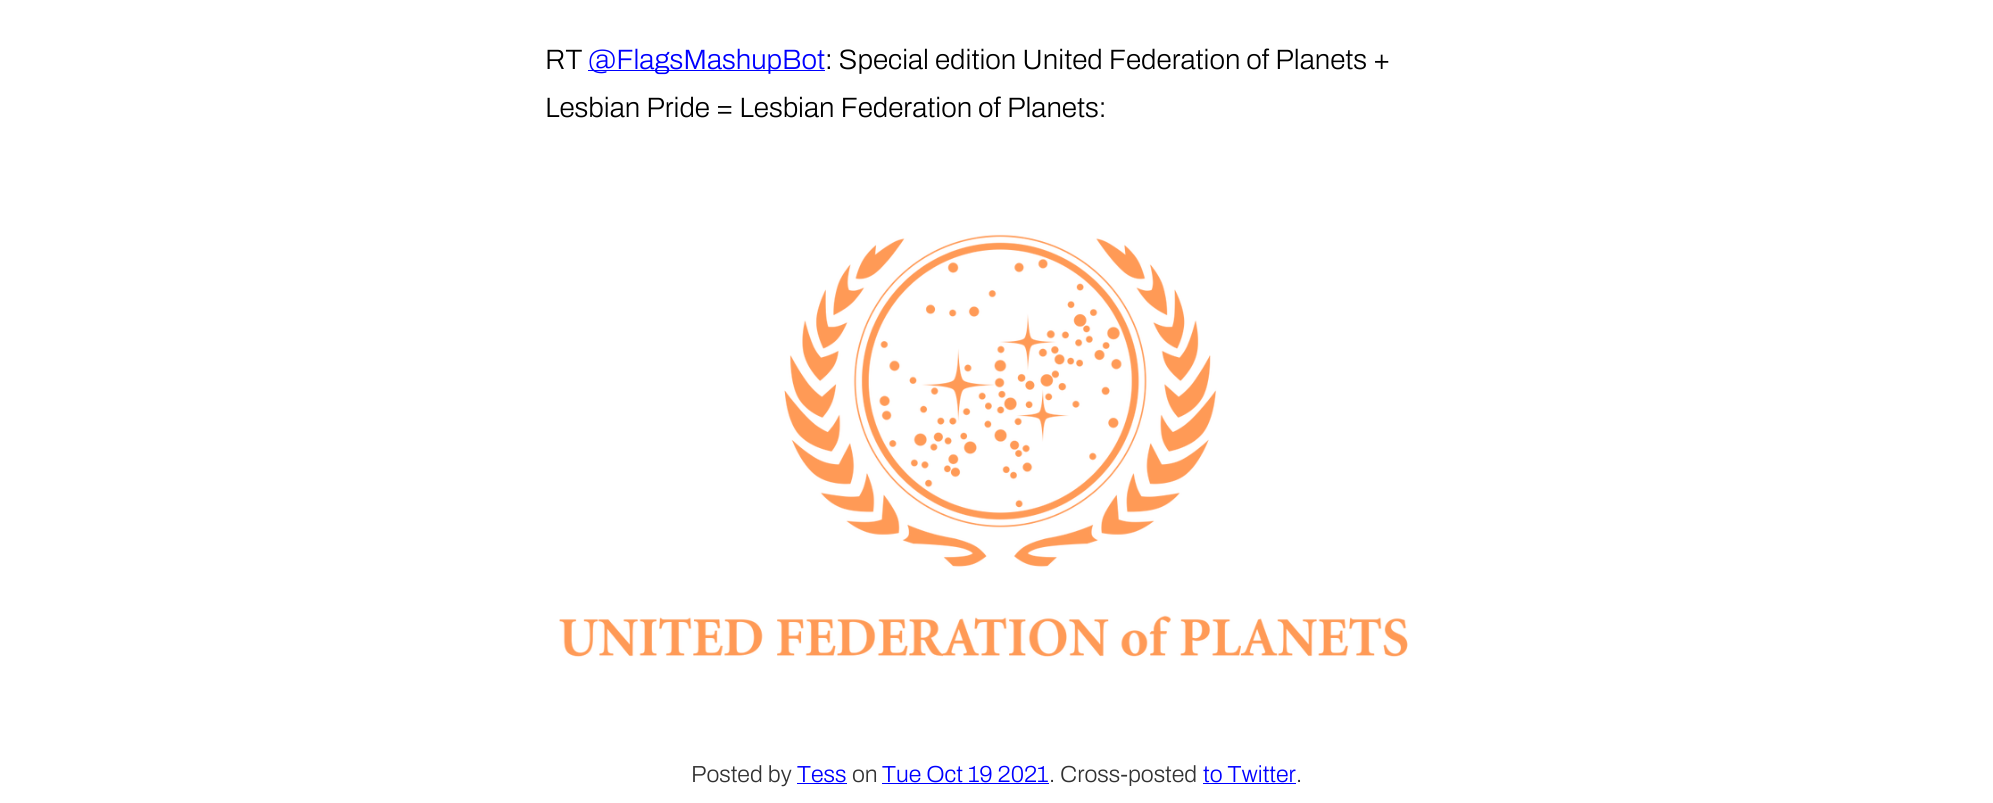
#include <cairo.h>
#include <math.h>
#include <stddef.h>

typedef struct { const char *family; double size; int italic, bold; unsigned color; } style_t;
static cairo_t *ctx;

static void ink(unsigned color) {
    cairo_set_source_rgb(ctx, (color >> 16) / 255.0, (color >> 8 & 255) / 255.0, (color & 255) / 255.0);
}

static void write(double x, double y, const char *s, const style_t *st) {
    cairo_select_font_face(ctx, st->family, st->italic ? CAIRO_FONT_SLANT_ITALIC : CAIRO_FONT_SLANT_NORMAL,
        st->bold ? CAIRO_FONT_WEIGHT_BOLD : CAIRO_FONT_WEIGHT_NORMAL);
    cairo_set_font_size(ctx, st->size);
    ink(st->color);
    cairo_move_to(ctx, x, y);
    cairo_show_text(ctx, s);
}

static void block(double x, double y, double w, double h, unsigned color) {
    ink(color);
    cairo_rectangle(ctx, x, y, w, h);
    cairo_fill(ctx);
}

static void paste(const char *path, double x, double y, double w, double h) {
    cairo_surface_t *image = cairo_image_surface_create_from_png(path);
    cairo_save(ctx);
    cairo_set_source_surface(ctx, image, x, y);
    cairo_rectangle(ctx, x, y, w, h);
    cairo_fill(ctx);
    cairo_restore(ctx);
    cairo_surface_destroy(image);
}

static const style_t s1 = {"Archivo Light", 28, 0, 0, 0x000000};
static const style_t s2 = {"Archivo Light", 28, 0, 0, 0x0000ff};
static const style_t s3 = {"Archivo Light", 23.25, 0, 0, 0x333333};
static const style_t s4 = {"Archivo Light", 23.25, 0, 0, 0x0000ff};

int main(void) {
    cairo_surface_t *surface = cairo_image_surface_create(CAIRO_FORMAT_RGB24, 1993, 803);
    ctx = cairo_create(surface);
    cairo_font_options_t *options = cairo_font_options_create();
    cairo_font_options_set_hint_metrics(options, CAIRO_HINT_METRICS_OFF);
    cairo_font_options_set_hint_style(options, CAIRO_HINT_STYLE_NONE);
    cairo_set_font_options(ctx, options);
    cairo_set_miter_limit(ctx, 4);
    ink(0xffffff);
    cairo_paint(ctx);
    write(545, 69, "RT", &s1);
    block(588, 70, 237, 1, 0x0000ff);
    write(588, 69, "@FlagsMashupBot", &s2);
    write(825, 69, ": Special edition United Federation of Planets +", &s1);
    write(545, 117, "Lesbian Pride = Lesbian Federation of Planets:", &s1);
    paste("pic1.png", 559, 234, 849, 423);
    write(691, 782, "Posted by", &s3);
    write(797, 782, "Tess", &s4);
    block(797, 783, 50, 1, 0x0000ff);
    write(852, 782, "on", &s3);
    write(882, 782, "Tue Oct 19 2021", &s4);
    write(1049, 782, ". Cross-posted", &s3);
    block(882, 783, 167, 1, 0x0000ff);
    write(1203, 782, "to Twitter", &s4);
    write(1296, 782, ".", &s3);
    block(1203, 783, 93, 1, 0x0000ff);
    cairo_surface_write_to_png(surface, "screenshot.png");
    cairo_font_options_destroy(options);
    cairo_destroy(ctx);
    cairo_surface_destroy(surface);
    return 0;
}
